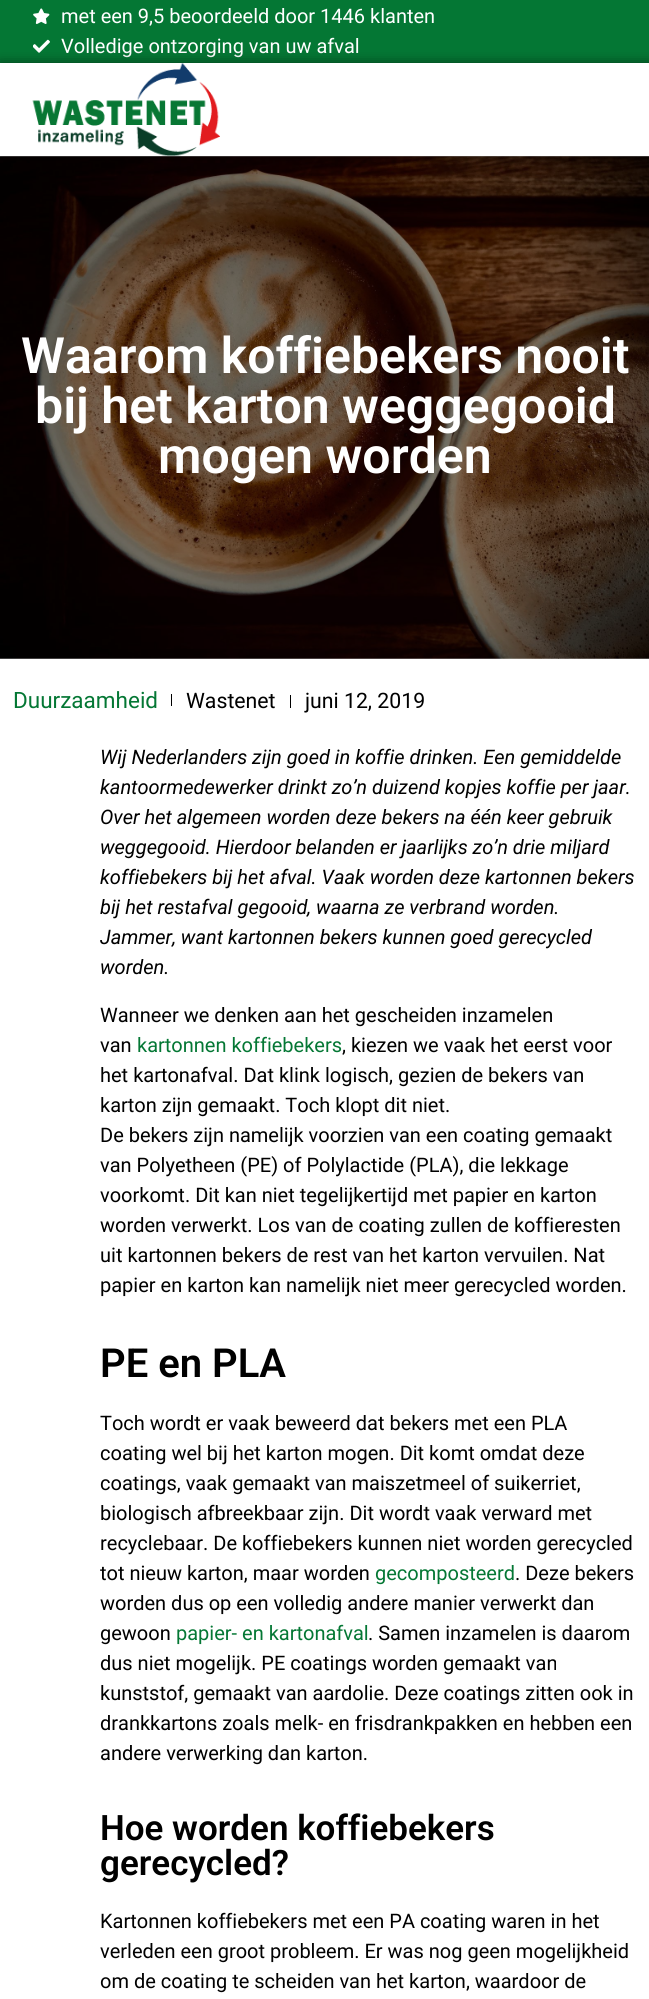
#include <cairo.h>
#include <math.h>
#include <stddef.h>

typedef struct { const char *family; double size; int italic, bold; unsigned color; } style_t;
static cairo_t *ctx;

static void ink(unsigned color) {
    cairo_set_source_rgb(ctx, (color >> 16) / 255.0, (color >> 8 & 255) / 255.0, (color & 255) / 255.0);
}

static void write(double x, double y, const char *s, const style_t *st) {
    cairo_select_font_face(ctx, st->family, st->italic ? CAIRO_FONT_SLANT_ITALIC : CAIRO_FONT_SLANT_NORMAL,
        st->bold ? CAIRO_FONT_WEIGHT_BOLD : CAIRO_FONT_WEIGHT_NORMAL);
    cairo_set_font_size(ctx, st->size);
    ink(st->color);
    cairo_move_to(ctx, x, y);
    cairo_show_text(ctx, s);
}

static void block(double x, double y, double w, double h, unsigned color) {
    ink(color);
    cairo_rectangle(ctx, x, y, w, h);
    cairo_fill(ctx);
}

static void round_path(double x, double y, double w, double h, double r) {
    cairo_new_sub_path(ctx);
    cairo_arc(ctx, x + w - r, y + h - r, r, 0, M_PI / 2);
    cairo_arc(ctx, x + r, y + h - r, r, M_PI / 2, M_PI);
    cairo_arc(ctx, x + r, y + r, r, M_PI, 1.5 * M_PI);
    cairo_arc(ctx, x + w - r, y + r, r, 1.5 * M_PI, 2 * M_PI);
    cairo_close_path(ctx);
}

static void blur_box(double x, double y, double w, double h, double r, double blur, double alpha) {
    cairo_push_group_with_content(ctx, CAIRO_CONTENT_ALPHA);
    cairo_set_operator(ctx, CAIRO_OPERATOR_SOURCE);
    for (int i = 15; i >= -15 && fmin(w, h) + blur * i / 3 > 0; i -= 2) {
        double e = blur * i / 6;
        cairo_set_source_rgba(ctx, 0, 0, 0, alpha * erfc((i - 1) / 8.5) / 2);
        round_path(x - e, y - e, w + 2 * e, h + 2 * e, fmax(0, fmin(r + e + blur * .6, fmin(w, h) / 2 + e)));
        cairo_fill(ctx);
    }
    cairo_pattern_t *soft = cairo_pop_group(ctx);
    cairo_mask(ctx, soft);
    cairo_pattern_destroy(soft);
}

static void paste(const char *path, double x, double y, double w, double h) {
    cairo_surface_t *image = cairo_image_surface_create_from_png(path);
    cairo_save(ctx);
    cairo_set_source_surface(ctx, image, x, y);
    cairo_rectangle(ctx, x, y, w, h);
    cairo_fill(ctx);
    cairo_restore(ctx);
    cairo_surface_destroy(image);
}

static const style_t s1 = {"Roboto", 20, 0, 0, 0xffffff};
static const style_t s2 = {"Roboto SemiBold", 50, 0, 0, 0xffffff};
static const style_t s3 = {"Roboto", 22.5, 0, 0, 0x047734};
static const style_t s4 = {"Roboto", 21.25, 0, 0, 0x000000};
static const style_t s5 = {"Roboto", 20, 1, 0, 0x000000};
static const style_t s6 = {"Roboto", 20, 0, 0, 0x000000};
static const style_t s7 = {"Roboto", 20, 0, 0, 0x047734};
static const style_t s8 = {"Roboto SemiBold", 40, 0, 0, 0x000000};
static const style_t s9 = {"Roboto SemiBold", 35, 0, 0, 0x000000};

int main(void) {
    cairo_surface_t *surface = cairo_image_surface_create(CAIRO_FORMAT_RGB24, 649, 1999);
    ctx = cairo_create(surface);
    cairo_font_options_t *options = cairo_font_options_create();
    cairo_font_options_set_hint_metrics(options, CAIRO_HINT_METRICS_OFF);
    cairo_font_options_set_hint_style(options, CAIRO_HINT_STYLE_NONE);
    cairo_set_font_options(ctx, options);
    cairo_set_miter_limit(ctx, 4);
    ink(0xffffff);
    cairo_paint(ctx);
    block(0, 0, 649, 63, 0x047734);
    paste("pic1.png", 33, 8, 17, 16);
    write(61, 23, "met een 9,5 beoordeeld door 1446 klanten", &s1);
    paste("pic2.png", 33, 39, 17, 14);
    write(61, 53, "Volledige ontzorging van uw afval", &s1);
    paste("pic4.png", 0, 156, 649, 503);
    cairo_save(ctx);
    cairo_set_fill_rule(ctx, CAIRO_FILL_RULE_EVEN_ODD);
    cairo_new_path(ctx);
    cairo_move_to(ctx, 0, 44);
    cairo_line_to(ctx, 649, 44);
    cairo_line_to(ctx, 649, 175);
    cairo_line_to(ctx, 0, 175);
    cairo_close_path(ctx);
    cairo_move_to(ctx, 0, 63);
    cairo_line_to(ctx, 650, 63);
    cairo_line_to(ctx, 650, 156);
    cairo_line_to(ctx, 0, 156);
    cairo_close_path(ctx);
    cairo_clip(ctx);
    ink(0x000000);
    blur_box(0, 63, 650, 93, 0, 6, 0.5);
    cairo_restore(ctx);
    paste("pic3.png", 32, 63, 188, 93);
    write(21, 373, "Waarom koffiebekers nooit", &s2);
    write(35, 423, "bij het karton weggegooid", &s2);
    write(158, 473, "mogen worden", &s2);
    write(13, 708, "Duurzaamheid", &s3);
    block(171, 694, 1, 12, 0x000000);
    write(186, 708, "Wastenet", &s4);
    block(290, 695, 1, 13, 0x000000);
    write(305, 708, "juni 12, 2019", &s4);
    write(100, 764, "Wij Nederlanders zijn goed in koffie drinken. Een gemiddelde", &s5);
    write(100, 794, "kantoormedewerker drinkt zo’n duizend kopjes koffie per jaar.", &s5);
    write(100, 824, "Over het algemeen worden deze bekers na één keer gebruik", &s5);
    write(100, 854, "weggegooid. Hierdoor belanden er jaarlijks zo’n drie miljard", &s5);
    write(100, 884, "koffiebekers bij het afval. Vaak worden deze kartonnen bekers", &s5);
    write(100, 914, "bij het restafval gegooid, waarna ze verbrand worden.", &s5);
    write(100, 944, "Jammer, want kartonnen bekers kunnen goed gerecycled", &s5);
    write(100, 974, "worden.", &s5);
    write(100, 1022, "Wanneer we denken aan het gescheiden inzamelen", &s6);
    write(100, 1052, "van", &s6);
    write(137, 1052, "kartonnen koffiebekers", &s7);
    write(342, 1052, ", kiezen we vaak het eerst voor", &s6);
    write(100, 1082, "het kartonafval. Dat klink logisch, gezien de bekers van", &s6);
    write(100, 1112, "karton zijn gemaakt. Toch klopt dit niet.", &s6);
    write(100, 1142, "De bekers zijn namelijk voorzien van een coating gemaakt", &s6);
    write(100, 1172, "van Polyetheen (PE) of Polylactide (PLA), die lekkage", &s6);
    write(100, 1202, "voorkomt. Dit kan niet tegelijkertijd met papier en karton", &s6);
    write(100, 1232, "worden verwerkt. Los van de coating zullen de koffieresten", &s6);
    write(100, 1262, "uit kartonnen bekers de rest van het karton vervuilen. Nat", &s6);
    write(100, 1292, "papier en karton kan namelijk niet meer gerecycled worden.", &s6);
    write(100, 1377, "PE en PLA", &s8);
    write(100, 1430, "Toch wordt er vaak beweerd dat bekers met een PLA", &s6);
    write(100, 1460, "coating wel bij het karton mogen. Dit komt omdat deze", &s6);
    write(100, 1490, "coatings, vaak gemaakt van maiszetmeel of suikerriet,", &s6);
    write(100, 1520, "biologisch afbreekbaar zijn. Dit wordt vaak verward met", &s6);
    write(100, 1550, "recyclebaar. De koffiebekers kunnen niet worden gerecycled", &s6);
    write(100, 1580, "tot nieuw karton, maar worden", &s6);
    write(375, 1580, "gecomposteerd", &s7);
    write(515, 1580, ". Deze bekers", &s6);
    write(100, 1610, "worden dus op een volledig andere manier verwerkt dan", &s6);
    write(100, 1640, "gewoon", &s6);
    write(176, 1640, "papier- en kartonafval", &s7);
    write(368, 1640, ". Samen inzamelen is daarom", &s6);
    write(100, 1670, "dus niet mogelijk. PE coatings worden gemaakt van", &s6);
    write(100, 1700, "kunststof, gemaakt van aardolie. Deze coatings zitten ook in", &s6);
    write(100, 1730, "drankkartons zoals melk- en frisdrankpakken en hebben een", &s6);
    write(100, 1760, "andere verwerking dan karton.", &s6);
    write(100, 1840, "Hoe worden koffiebekers", &s9);
    write(100, 1875, "gerecycled?", &s9);
    write(100, 1928, "Kartonnen koffiebekers met een PA coating waren in het", &s6);
    write(100, 1958, "verleden een groot probleem. Er was nog geen mogelijkheid", &s6);
    write(100, 1988, "om de coating te scheiden van het karton, waardoor de", &s6);
    cairo_surface_write_to_png(surface, "screenshot.png");
    cairo_font_options_destroy(options);
    cairo_destroy(ctx);
    cairo_surface_destroy(surface);
    return 0;
}
